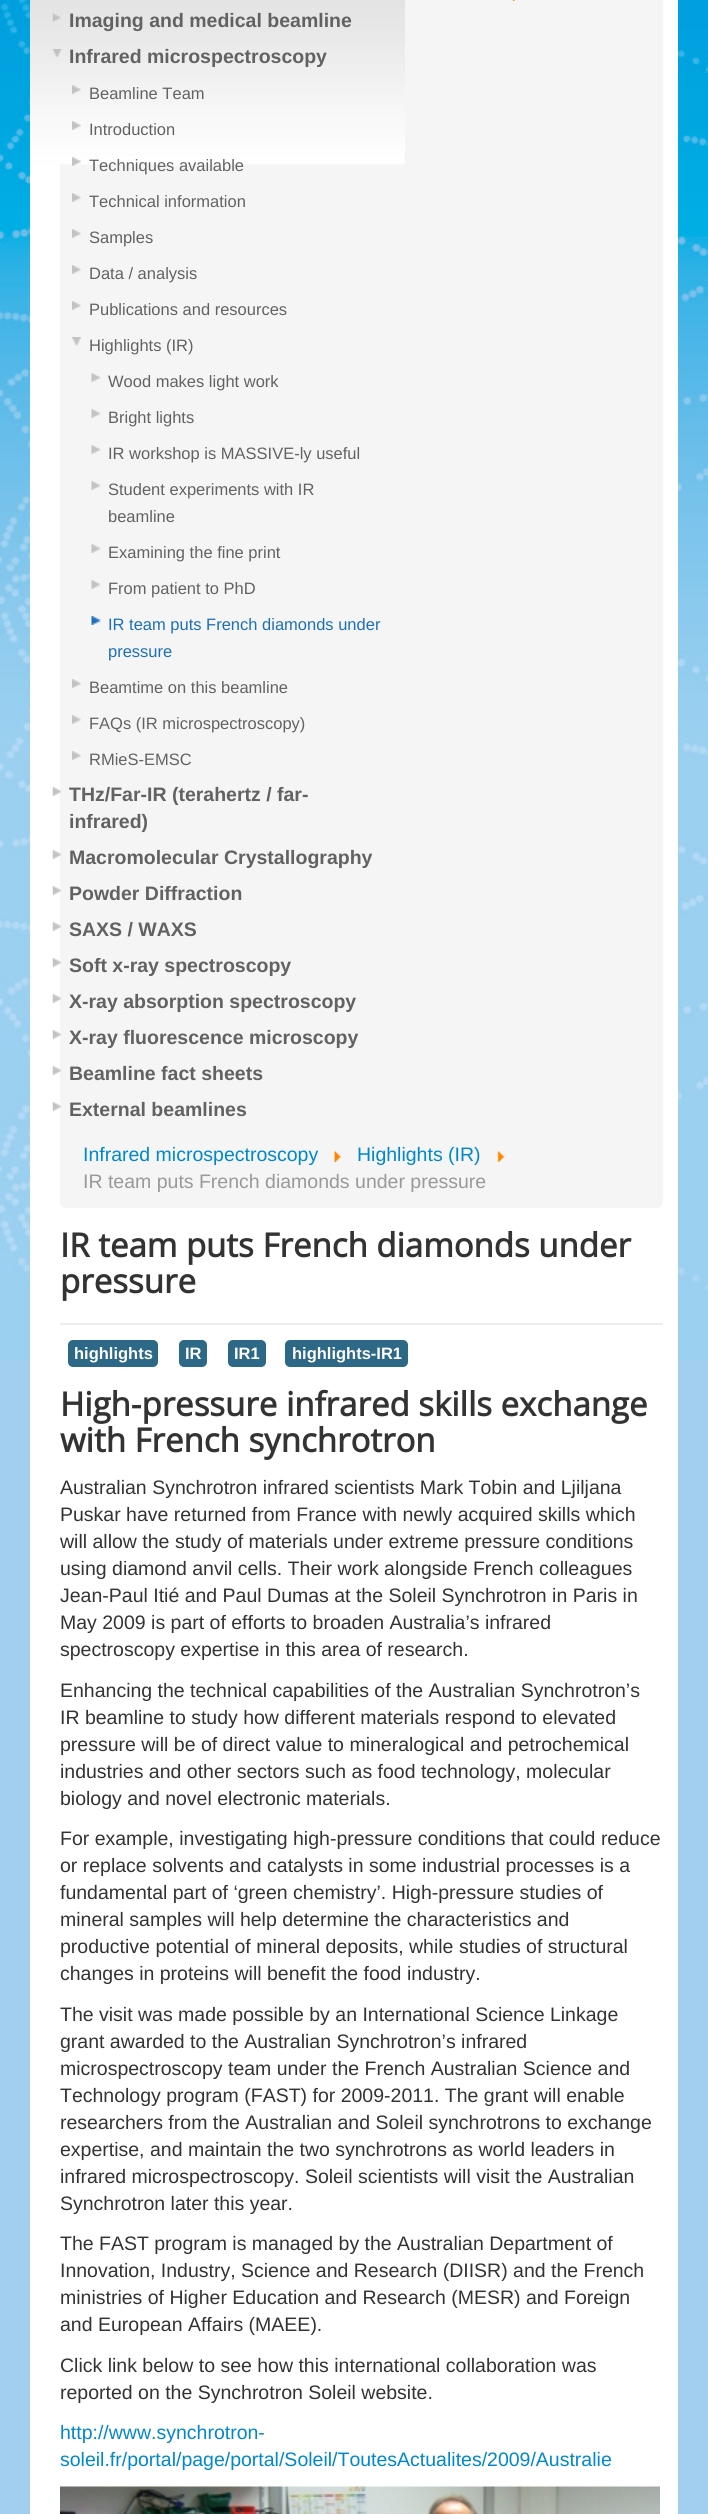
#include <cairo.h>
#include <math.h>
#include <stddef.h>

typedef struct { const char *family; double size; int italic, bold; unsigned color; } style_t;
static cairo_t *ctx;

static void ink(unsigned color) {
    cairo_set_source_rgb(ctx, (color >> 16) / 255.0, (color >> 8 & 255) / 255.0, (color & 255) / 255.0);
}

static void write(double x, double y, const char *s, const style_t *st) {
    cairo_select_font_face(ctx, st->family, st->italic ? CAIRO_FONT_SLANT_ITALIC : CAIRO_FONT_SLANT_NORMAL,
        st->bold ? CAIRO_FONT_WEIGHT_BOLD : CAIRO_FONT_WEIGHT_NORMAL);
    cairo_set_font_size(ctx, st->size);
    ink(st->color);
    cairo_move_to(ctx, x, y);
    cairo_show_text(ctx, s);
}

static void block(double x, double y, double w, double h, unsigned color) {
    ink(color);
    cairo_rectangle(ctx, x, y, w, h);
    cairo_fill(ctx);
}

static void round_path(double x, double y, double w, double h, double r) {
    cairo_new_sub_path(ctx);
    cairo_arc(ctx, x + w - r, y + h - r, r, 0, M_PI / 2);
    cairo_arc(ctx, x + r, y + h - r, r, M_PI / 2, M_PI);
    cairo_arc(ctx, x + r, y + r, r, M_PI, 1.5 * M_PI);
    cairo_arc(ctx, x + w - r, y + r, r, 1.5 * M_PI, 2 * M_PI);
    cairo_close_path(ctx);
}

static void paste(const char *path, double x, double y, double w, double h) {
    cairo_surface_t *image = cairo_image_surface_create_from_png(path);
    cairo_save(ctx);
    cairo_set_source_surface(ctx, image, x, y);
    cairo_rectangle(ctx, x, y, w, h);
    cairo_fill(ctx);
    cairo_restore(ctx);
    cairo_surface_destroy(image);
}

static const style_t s1 = {"Liberation Sans", 19.5, 0, 1, 0x626262};
static const style_t s2 = {"Liberation Sans", 16.5, 0, 0, 0x626262};
static const style_t s3 = {"Liberation Sans", 16.5, 0, 0, 0x1c6fb8};
static const style_t s4 = {"Liberation Sans", 19.5, 0, 0, 0x0088cc};
static const style_t s5 = {"Liberation Sans", 19.5, 0, 0, 0x999999};
static const style_t s6 = {"Open Sans", 33, 0, 1, 0x333333};
static const style_t s7 = {"Liberation Sans", 16.5, 0, 1, 0xffffff};
static const style_t s8 = {"Liberation Sans", 19.5, 0, 0, 0x333333};

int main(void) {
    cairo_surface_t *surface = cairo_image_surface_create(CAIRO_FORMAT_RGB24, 708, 2514);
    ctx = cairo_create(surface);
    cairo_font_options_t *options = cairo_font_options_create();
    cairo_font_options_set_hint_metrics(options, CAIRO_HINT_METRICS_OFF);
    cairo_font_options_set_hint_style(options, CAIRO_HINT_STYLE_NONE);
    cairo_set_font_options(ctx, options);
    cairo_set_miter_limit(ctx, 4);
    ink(0xa2cfef);
    cairo_paint(ctx);
    paste("pic1.png", 0, 0, 708, 1360);
    block(30, 0, 648, 2514, 0xffffff);
    ink(0xf5f5f5);
    round_path(60, -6, 603, 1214, 6);
    cairo_fill(ctx);
    paste("pic2.png", 30, 0, 375, 165);
    paste("pic3.png", 52, 13, 9, 9);
    write(69, 27, "Imaging and medical beamline", &s1);
    paste("pic4.png", 52, 49, 10, 9);
    write(69, 63, "Infrared microspectroscopy", &s1);
    paste("pic5.png", 72, 85, 9, 9);
    write(89, 99, "Beamline Team", &s2);
    paste("pic6.png", 72, 121, 9, 9);
    write(89, 135, "Introduction", &s2);
    paste("pic7.png", 72, 157, 9, 9);
    write(89, 171, "Techniques available", &s2);
    paste("pic8.png", 72, 193, 9, 9);
    write(89, 207, "Technical information", &s2);
    paste("pic8.png", 72, 229, 9, 9);
    write(89, 243, "Samples", &s2);
    paste("pic8.png", 72, 265, 9, 9);
    write(89, 279, "Data / analysis", &s2);
    paste("pic8.png", 72, 301, 9, 9);
    write(89, 315, "Publications and resources", &s2);
    paste("pic9.png", 72, 337, 9, 9);
    write(89, 351, "Highlights (IR)", &s2);
    paste("pic10.png", 91, 373, 10, 9);
    write(108, 387, "Wood makes light work", &s2);
    paste("pic10.png", 91, 409, 10, 9);
    write(108, 423, "Bright lights", &s2);
    paste("pic10.png", 91, 445, 10, 9);
    write(108, 459, "IR workshop is MASSIVE-ly useful", &s2);
    paste("pic10.png", 91, 481, 10, 9);
    write(108, 495, "Student experiments with IR", &s2);
    write(108, 522, "beamline", &s2);
    paste("pic10.png", 91, 544, 10, 9);
    write(108, 558, "Examining the fine print", &s2);
    paste("pic10.png", 91, 580, 10, 9);
    write(108, 594, "From patient to PhD", &s2);
    paste("pic11.png", 91, 616, 10, 9);
    write(108, 630, "IR team puts French diamonds under", &s3);
    write(108, 657, "pressure", &s3);
    paste("pic8.png", 72, 679, 9, 9);
    write(89, 693, "Beamtime on this beamline", &s2);
    paste("pic8.png", 72, 715, 9, 9);
    write(89, 729, "FAQs (IR microspectroscopy)", &s2);
    paste("pic8.png", 72, 751, 9, 9);
    write(89, 765, "RMieS-EMSC", &s2);
    paste("pic12.png", 52, 787, 10, 9);
    write(69, 801, "THz/Far-IR (terahertz / far-", &s1);
    write(69, 828, "infrared)", &s1);
    paste("pic12.png", 52, 850, 10, 9);
    write(69, 864, "Macromolecular Crystallography", &s1);
    paste("pic12.png", 52, 886, 10, 9);
    write(69, 900, "Powder Diffraction", &s1);
    paste("pic12.png", 52, 922, 10, 9);
    write(69, 936, "SAXS / WAXS", &s1);
    paste("pic12.png", 52, 958, 10, 9);
    write(69, 972, "Soft x-ray spectroscopy", &s1);
    paste("pic12.png", 52, 994, 10, 9);
    write(69, 1008, "X-ray absorption spectroscopy", &s1);
    paste("pic12.png", 52, 1030, 10, 9);
    write(69, 1044, "X-ray fluorescence microscopy", &s1);
    paste("pic12.png", 52, 1066, 10, 9);
    write(69, 1080, "Beamline fact sheets", &s1);
    paste("pic12.png", 52, 1102, 10, 9);
    write(69, 1116, "External beamlines", &s1);
    paste("pic13.png", 512, 0, 3, 1);
    write(83, 1161, "Infrared microspectroscopy", &s4);
    paste("pic14.png", 334, 1151, 7, 11);
    write(357, 1161, "Highlights (IR)", &s4);
    paste("pic15.png", 497, 1151, 8, 11);
    write(83, 1188, "IR team puts French diamonds under pressure", &s5);
    block(60, 1323, 603, 2, 0xeeeeee);
    write(60, 1257, "IR team puts French diamonds under", &s6);
    write(60, 1293, "pressure", &s6);
    ink(0x2d6987);
    round_path(68, 1340, 90, 27, 5);
    cairo_fill(ctx);
    write(74, 1359, "highlights", &s7);
    ink(0x2d6987);
    round_path(179, 1340, 28, 27, 5);
    cairo_fill(ctx);
    write(185, 1359, "IR", &s7);
    ink(0x2d6987);
    round_path(228, 1340, 38, 27, 5);
    cairo_fill(ctx);
    write(234, 1359, "IR1", &s7);
    ink(0x2d6987);
    round_path(285, 1340, 123, 27, 5);
    cairo_fill(ctx);
    write(292, 1359, "highlights-IR1", &s7);
    write(60, 1416, "High-pressure infrared skills exchange", &s6);
    write(60, 1452, "with French synchrotron", &s6);
    write(60, 1494, "Australian Synchrotron infrared scientists Mark Tobin and Ljiljana", &s8);
    write(60, 1521, "Puskar have returned from France with newly acquired skills which", &s8);
    write(60, 1548, "will allow the study of materials under extreme pressure conditions", &s8);
    write(60, 1575, "using diamond anvil cells. Their work alongside French colleagues", &s8);
    write(60, 1602, "Jean-Paul Itié and Paul Dumas at the Soleil Synchrotron in Paris in", &s8);
    write(60, 1629, "May 2009 is part of efforts to broaden Australia’s infrared", &s8);
    write(60, 1656, "spectroscopy expertise in this area of research.", &s8);
    write(60, 1697, "Enhancing the technical capabilities of the Australian Synchrotron’s", &s8);
    write(60, 1724, "IR beamline to study how different materials respond to elevated", &s8);
    write(60, 1751, "pressure will be of direct value to mineralogical and petrochemical", &s8);
    write(60, 1778, "industries and other sectors such as food technology, molecular", &s8);
    write(60, 1805, "biology and novel electronic materials.", &s8);
    write(60, 1845, "For example, investigating high-pressure conditions that could reduce", &s8);
    write(60, 1872, "or replace solvents and catalysts in some industrial processes is a", &s8);
    write(60, 1899, "fundamental part of ‘green chemistry’. High-pressure studies of", &s8);
    write(60, 1926, "mineral samples will help determine the characteristics and", &s8);
    write(60, 1953, "productive potential of mineral deposits, while studies of structural", &s8);
    write(60, 1980, "changes in proteins will benefit the food industry.", &s8);
    write(60, 2021, "The visit was made possible by an International Science Linkage", &s8);
    write(60, 2048, "grant awarded to the Australian Synchrotron’s infrared", &s8);
    write(60, 2075, "microspectroscopy team under the French Australian Science and", &s8);
    write(60, 2102, "Technology program (FAST) for 2009-2011. The grant will enable", &s8);
    write(60, 2129, "researchers from the Australian and Soleil synchrotrons to exchange", &s8);
    write(60, 2156, "expertise, and maintain the two synchrotrons as world leaders in", &s8);
    write(60, 2183, "infrared microspectroscopy. Soleil scientists will visit the Australian", &s8);
    write(60, 2210, "Synchrotron later this year.", &s8);
    write(60, 2250, "The FAST program is managed by the Australian Department of", &s8);
    write(60, 2277, "Innovation, Industry, Science and Research (DIISR) and the French", &s8);
    write(60, 2304, "ministries of Higher Education and Research (MESR) and Foreign", &s8);
    write(60, 2331, "and European Affairs (MAEE).", &s8);
    write(60, 2372, "Click link below to see how this international collaboration was", &s8);
    write(60, 2399, "reported on the Synchrotron Soleil website.", &s8);
    write(60, 2439, "http://www.synchrotron-", &s4);
    write(60, 2466, "soleil.fr/portal/page/portal/Soleil/ToutesActualites/2009/Australie", &s4);
    paste("pic16.png", 60, 2486, 600, 28);
    cairo_surface_write_to_png(surface, "screenshot.png");
    cairo_font_options_destroy(options);
    cairo_destroy(ctx);
    cairo_surface_destroy(surface);
    return 0;
}
